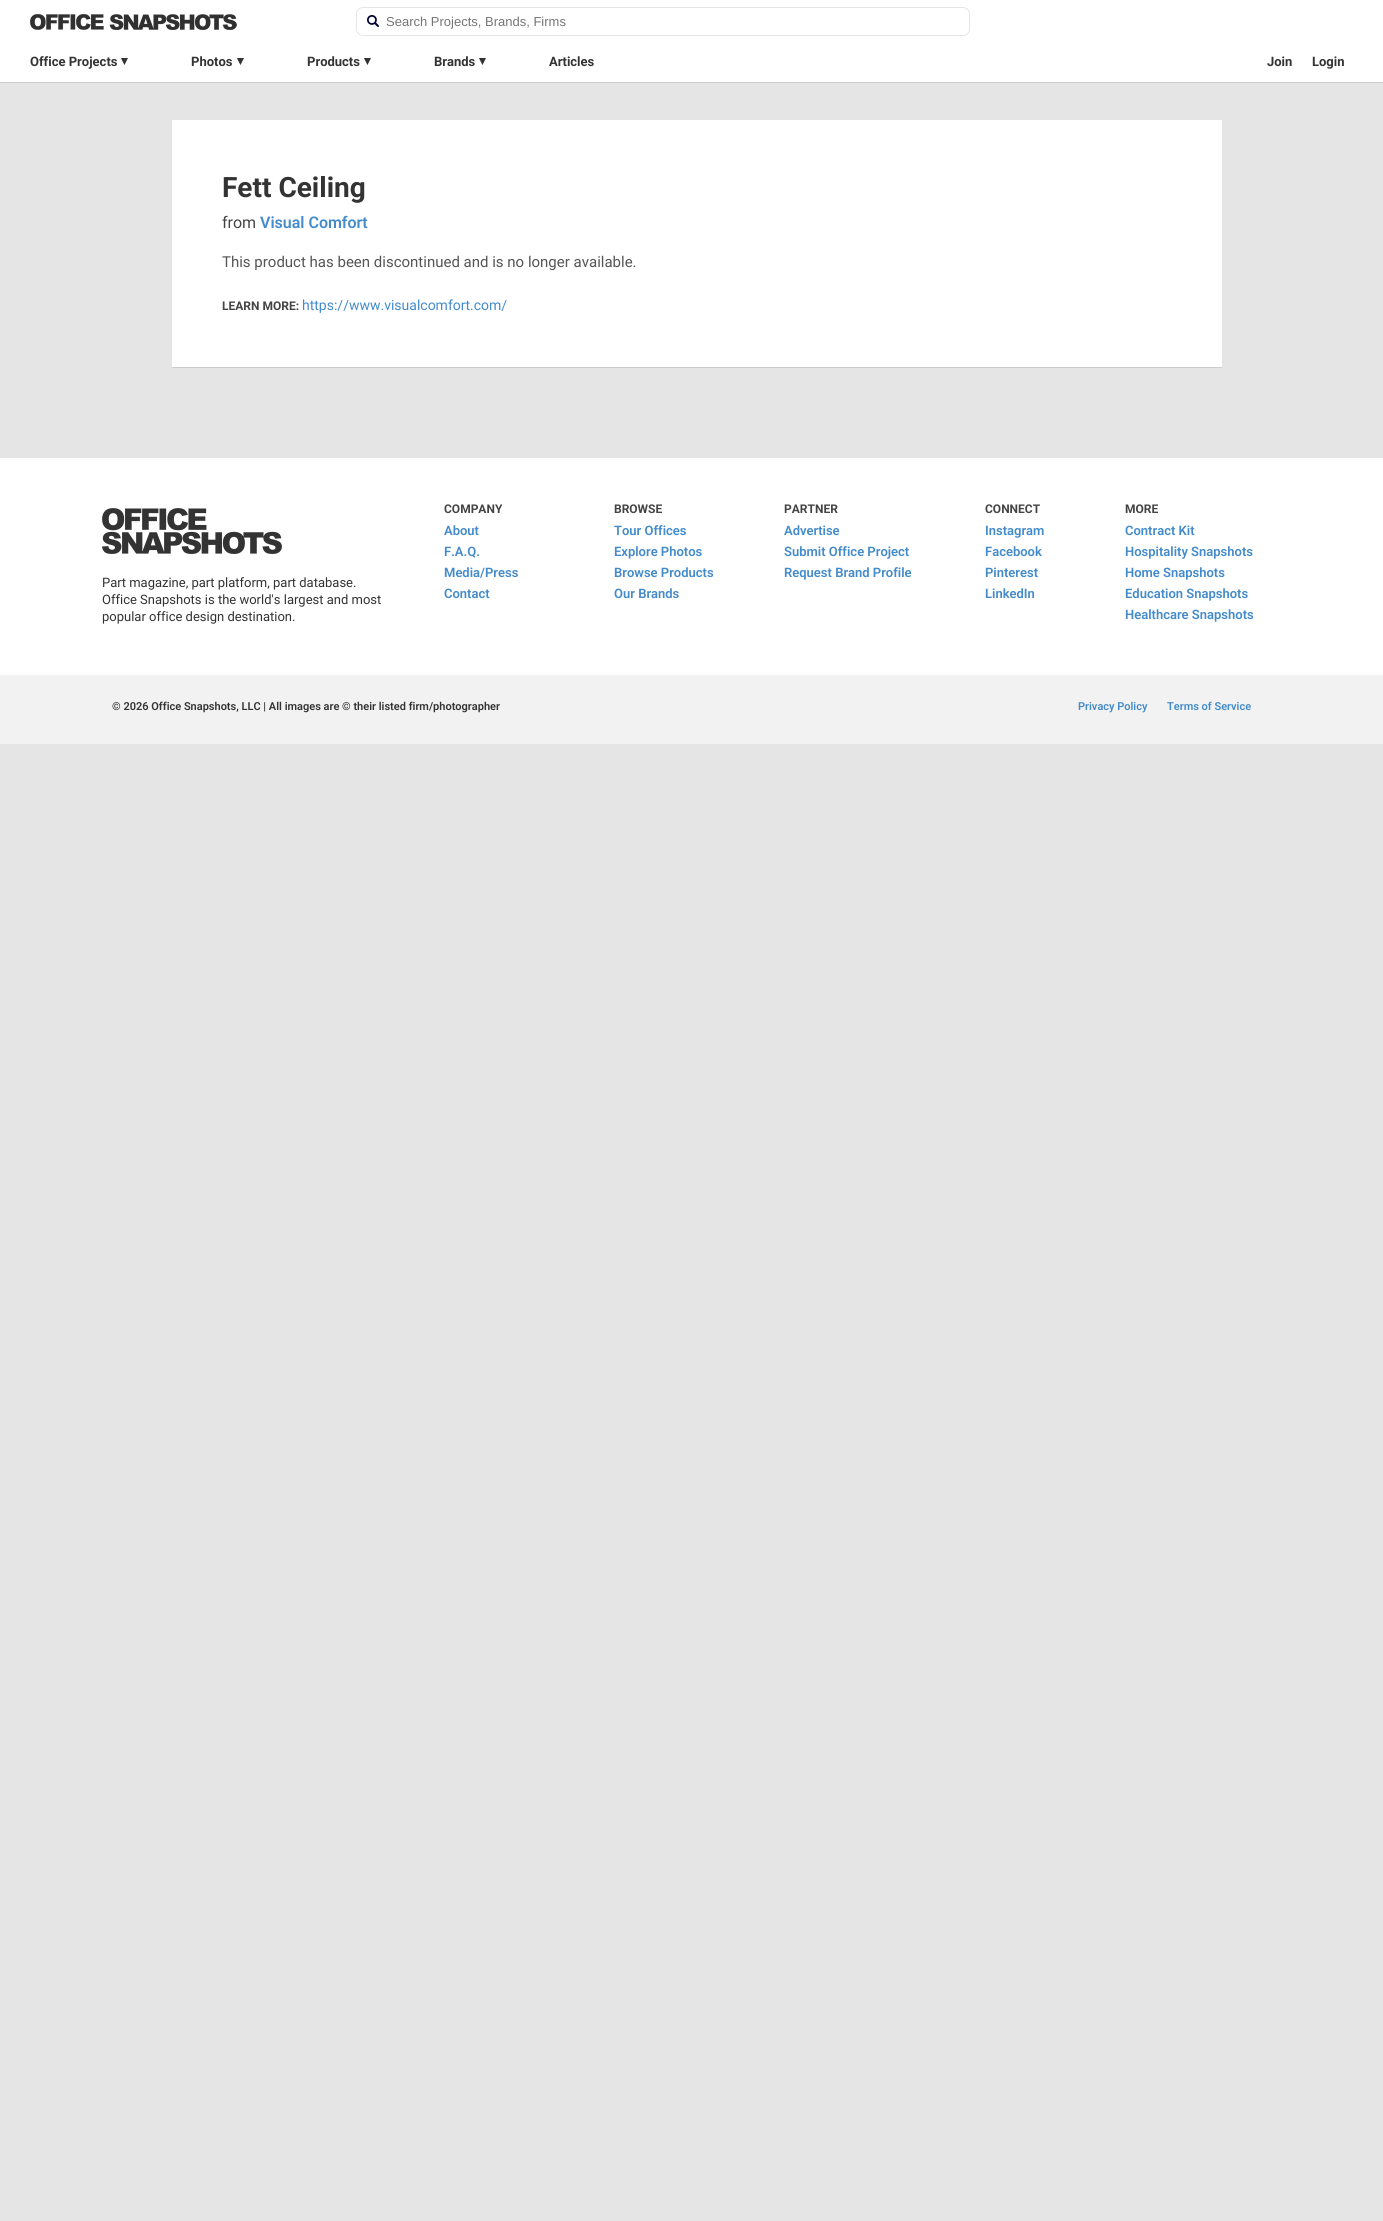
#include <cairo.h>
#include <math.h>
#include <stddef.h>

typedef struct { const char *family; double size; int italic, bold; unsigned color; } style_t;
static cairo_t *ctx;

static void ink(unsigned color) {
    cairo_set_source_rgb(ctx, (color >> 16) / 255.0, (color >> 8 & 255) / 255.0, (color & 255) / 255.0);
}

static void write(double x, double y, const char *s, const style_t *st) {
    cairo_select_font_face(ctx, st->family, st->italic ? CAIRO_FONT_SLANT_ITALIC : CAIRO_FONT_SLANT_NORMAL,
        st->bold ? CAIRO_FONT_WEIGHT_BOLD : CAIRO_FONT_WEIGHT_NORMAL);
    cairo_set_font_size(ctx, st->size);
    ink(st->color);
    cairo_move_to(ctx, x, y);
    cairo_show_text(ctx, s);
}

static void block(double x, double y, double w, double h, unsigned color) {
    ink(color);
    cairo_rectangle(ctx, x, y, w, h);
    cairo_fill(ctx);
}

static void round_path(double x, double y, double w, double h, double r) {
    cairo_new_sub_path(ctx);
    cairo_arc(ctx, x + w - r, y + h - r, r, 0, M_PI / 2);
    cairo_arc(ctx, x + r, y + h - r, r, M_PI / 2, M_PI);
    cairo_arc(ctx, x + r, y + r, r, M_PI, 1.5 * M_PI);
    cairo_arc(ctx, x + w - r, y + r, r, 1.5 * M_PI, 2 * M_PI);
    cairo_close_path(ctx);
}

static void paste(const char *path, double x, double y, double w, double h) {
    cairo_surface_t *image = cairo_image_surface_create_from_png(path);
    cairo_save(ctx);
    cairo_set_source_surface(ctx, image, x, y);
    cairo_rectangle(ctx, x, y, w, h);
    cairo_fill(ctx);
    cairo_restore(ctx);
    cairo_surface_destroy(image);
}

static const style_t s1 = {"Liberation Sans", 13, 0, 0, 0x757575};
static const style_t s2 = {"Roboto", 13, 0, 1, 0x333333};
static const style_t s3 = {"DejaVu Sans", 13, 0, 1, 0x333333};
static const style_t s4 = {"Roboto", 28, 0, 1, 0x333333};
static const style_t s5 = {"Roboto", 16, 0, 0, 0x444444};
static const style_t s6 = {"Roboto SemiBold", 16, 0, 0, 0x438bca};
static const style_t s7 = {"Roboto", 15, 0, 0, 0x555555};
static const style_t s8 = {"Roboto", 12, 0, 1, 0x444444};
static const style_t s9 = {"Roboto", 14, 0, 0, 0x438bca};
static const style_t s10 = {"Roboto", 13, 0, 0, 0x333333};
static const style_t s11 = {"Roboto SemiBold", 13, 0, 0, 0x438bca};
static const style_t s12 = {"Roboto SemiBold", 11, 0, 0, 0x333333};
static const style_t s13 = {"Roboto SemiBold", 11, 0, 0, 0x438bca};

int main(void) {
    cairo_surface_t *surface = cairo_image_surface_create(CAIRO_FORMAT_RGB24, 1383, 2221);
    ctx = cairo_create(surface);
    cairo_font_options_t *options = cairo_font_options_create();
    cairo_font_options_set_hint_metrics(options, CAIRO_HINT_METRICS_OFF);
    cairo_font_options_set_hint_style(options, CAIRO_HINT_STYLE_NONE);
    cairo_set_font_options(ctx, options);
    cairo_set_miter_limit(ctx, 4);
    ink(0xe5e5e5);
    cairo_paint(ctx);
    block(0, 0, 1383, 82, 0xffffff);
    block(0, 82, 1383, 1, 0xcccccc);
    paste("pic1.png", 30, 14, 207, 16);
    round_path(356.5, 7.5, 613, 28, 6.5);
    ink(0xe6e6e6);
    cairo_set_line_width(ctx, 1);
    cairo_stroke(ctx);
    paste("pic2.png", 367, 15, 12, 12);
    write(386, 26, "Search Projects, Brands, Firms", &s1);
    write(30, 66, "Office Projects", &s2);
    write(121, 65, "▾", &s3);
    write(191, 66, "Photos", &s2);
    write(237, 65, "▾", &s3);
    write(307, 66, "Products", &s2);
    write(364, 65, "▾", &s3);
    write(434, 66, "Brands", &s2);
    write(479, 65, "▾", &s3);
    write(549, 66, "Articles", &s2);
    write(1267, 66, "Join", &s2);
    write(1312, 66, "Login", &s2);
    block(172, 120, 1050, 247, 0xffffff);
    block(172, 367, 1050, 1, 0xcccccc);
    write(222, 197, "Fett Ceiling", &s4);
    write(222, 228, "from", &s5);
    write(260, 228, "Visual Comfort", &s6);
    write(222, 267, "This product has been discontinued and is no longer available.", &s7);
    write(222, 310, "LEARN MORE:", &s8);
    write(302, 310, "https://www.visualcomfort.com/", &s9);
    block(0, 458, 1383, 217, 0xffffff);
    paste("pic3.png", 102, 508, 180, 46);
    write(102, 587, "Part magazine, part platform, part database.", &s10);
    write(102, 604, "Office Snapshots is the world's largest and most", &s10);
    write(102, 621, "popular office design destination.", &s10);
    write(444, 513, "COMPANY", &s8);
    write(444, 535, "About", &s11);
    write(444, 556, "F.A.Q.", &s11);
    write(444, 577, "Media/Press", &s11);
    write(444, 598, "Contact", &s11);
    write(614, 513, "BROWSE", &s8);
    write(614, 535, "Tour Offices", &s11);
    write(614, 556, "Explore Photos", &s11);
    write(614, 577, "Browse Products", &s11);
    write(614, 598, "Our Brands", &s11);
    write(784, 513, "PARTNER", &s8);
    write(784, 535, "Advertise", &s11);
    write(784, 556, "Submit Office Project", &s11);
    write(784, 577, "Request Brand Profile", &s11);
    write(985, 513, "CONNECT", &s8);
    write(985, 535, "Instagram", &s11);
    write(985, 556, "Facebook", &s11);
    write(985, 577, "Pinterest", &s11);
    write(985, 598, "LinkedIn", &s11);
    write(1125, 513, "MORE", &s8);
    write(1125, 535, "Contract Kit", &s11);
    write(1125, 556, "Hospitality Snapshots", &s11);
    write(1125, 577, "Home Snapshots", &s11);
    write(1125, 598, "Education Snapshots", &s11);
    write(1125, 619, "Healthcare Snapshots", &s11);
    block(0, 675, 1383, 69, 0xf2f2f2);
    write(112, 710, "© 2026 Office Snapshots, LLC | All images are © their listed firm/photographer", &s12);
    write(1078, 710, "Privacy Policy", &s13);
    write(1167, 710, "Terms of Service", &s13);
    cairo_surface_write_to_png(surface, "screenshot.png");
    cairo_font_options_destroy(options);
    cairo_destroy(ctx);
    cairo_surface_destroy(surface);
    return 0;
}
